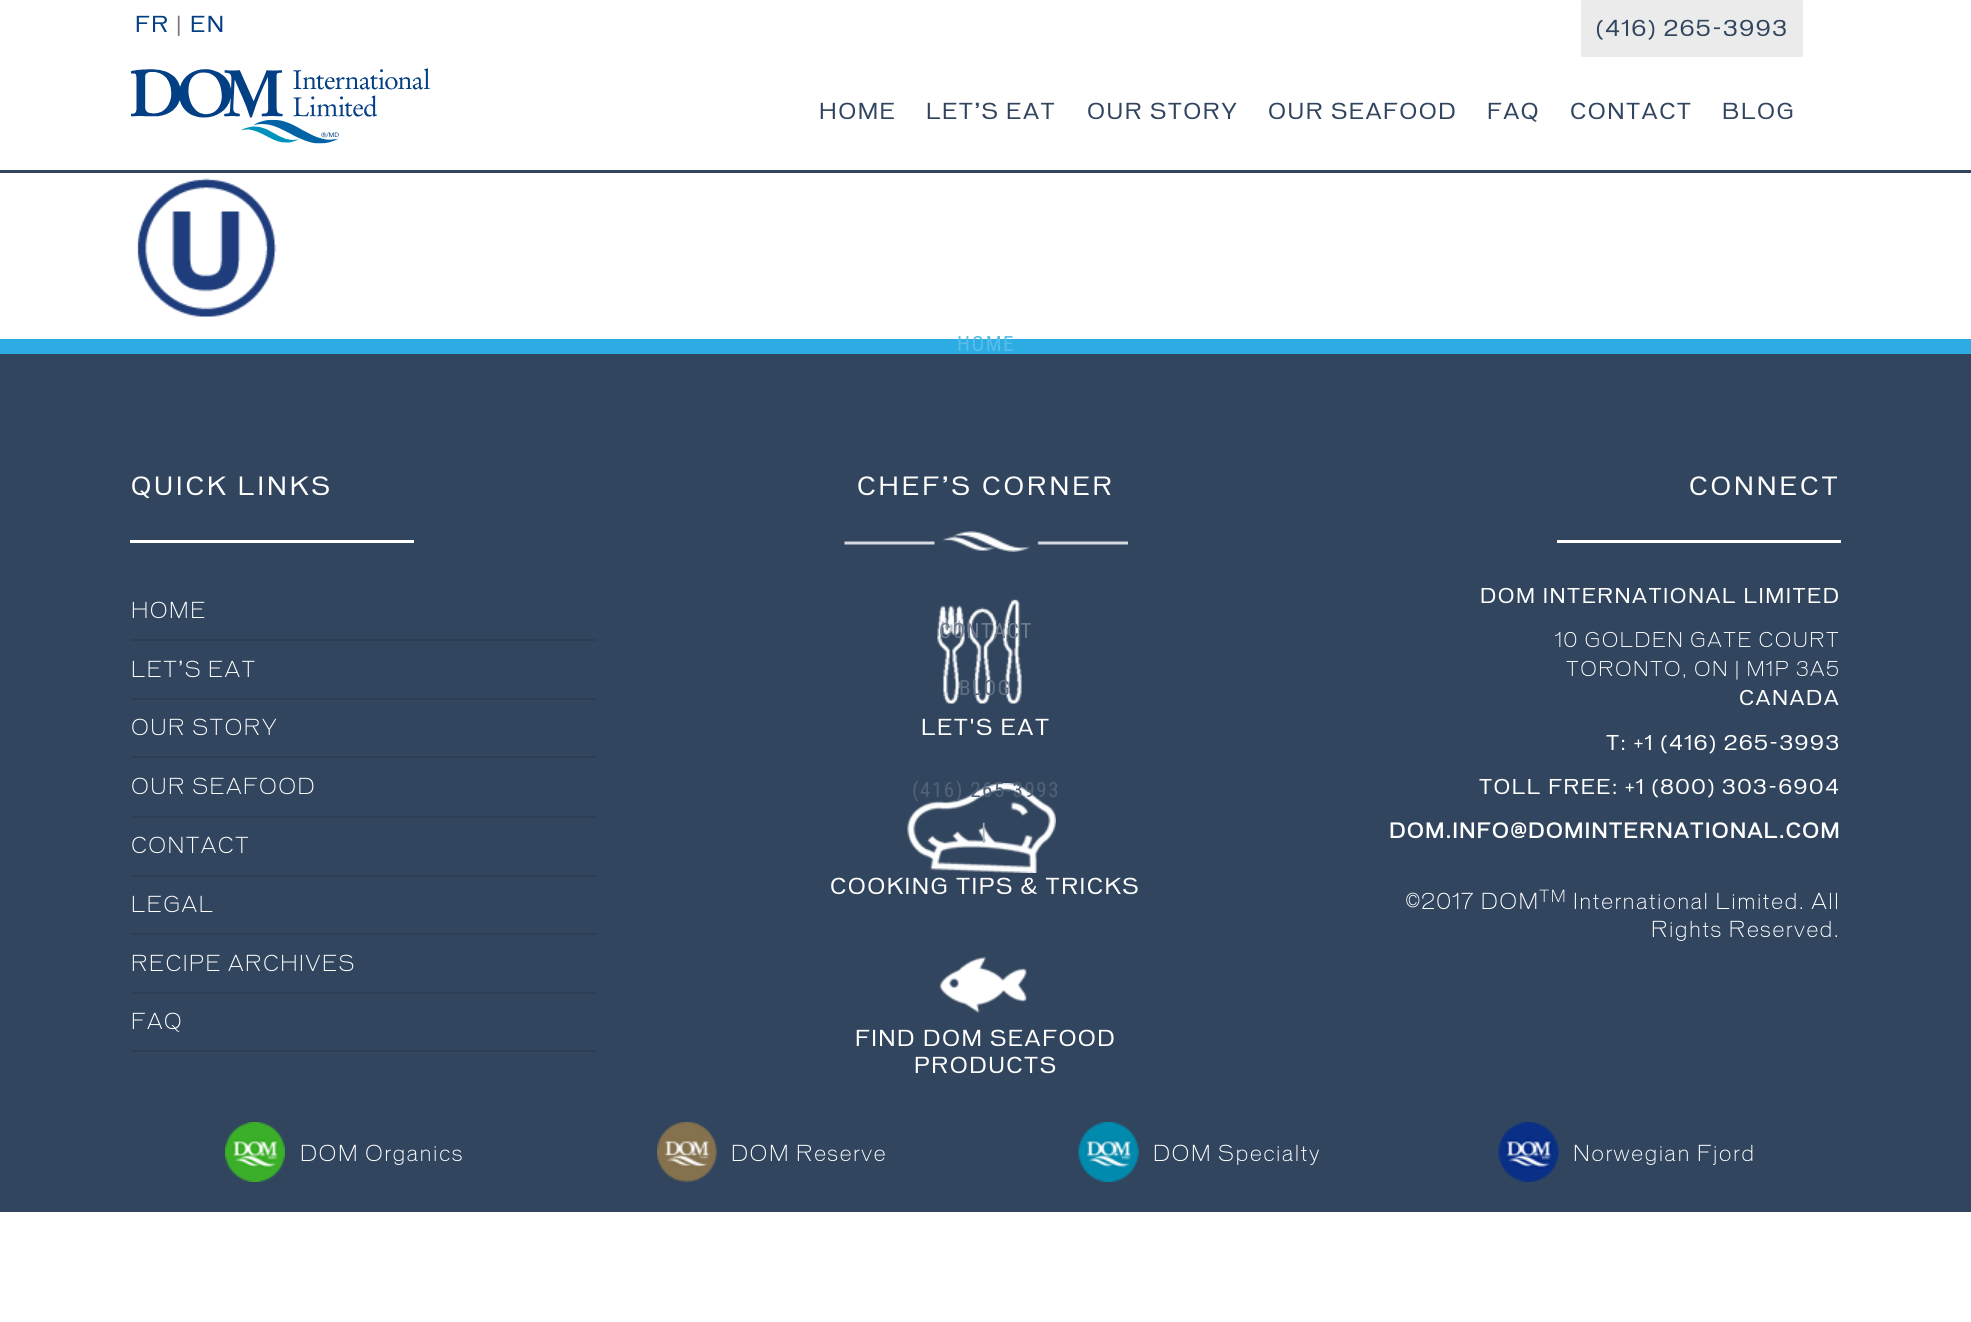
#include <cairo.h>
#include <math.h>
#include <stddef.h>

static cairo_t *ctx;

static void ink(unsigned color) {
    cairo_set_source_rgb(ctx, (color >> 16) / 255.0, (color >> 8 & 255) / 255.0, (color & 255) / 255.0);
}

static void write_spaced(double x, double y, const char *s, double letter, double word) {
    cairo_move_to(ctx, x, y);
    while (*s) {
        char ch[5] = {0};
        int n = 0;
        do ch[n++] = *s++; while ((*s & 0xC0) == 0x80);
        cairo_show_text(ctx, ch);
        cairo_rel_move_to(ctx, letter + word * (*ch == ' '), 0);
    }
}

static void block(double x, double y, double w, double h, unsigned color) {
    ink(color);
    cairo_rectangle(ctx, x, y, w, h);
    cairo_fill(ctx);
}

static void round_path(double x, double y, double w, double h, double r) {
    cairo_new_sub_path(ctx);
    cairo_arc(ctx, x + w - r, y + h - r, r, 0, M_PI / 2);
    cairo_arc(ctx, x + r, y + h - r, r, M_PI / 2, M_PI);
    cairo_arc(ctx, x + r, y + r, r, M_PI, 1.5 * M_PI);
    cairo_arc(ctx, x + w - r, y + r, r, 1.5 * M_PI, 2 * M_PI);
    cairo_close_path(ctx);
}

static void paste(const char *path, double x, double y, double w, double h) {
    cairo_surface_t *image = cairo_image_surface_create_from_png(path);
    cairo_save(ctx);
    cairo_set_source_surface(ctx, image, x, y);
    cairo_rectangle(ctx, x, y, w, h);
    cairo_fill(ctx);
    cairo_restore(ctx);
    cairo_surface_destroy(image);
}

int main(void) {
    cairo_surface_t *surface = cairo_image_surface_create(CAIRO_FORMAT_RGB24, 1971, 1322);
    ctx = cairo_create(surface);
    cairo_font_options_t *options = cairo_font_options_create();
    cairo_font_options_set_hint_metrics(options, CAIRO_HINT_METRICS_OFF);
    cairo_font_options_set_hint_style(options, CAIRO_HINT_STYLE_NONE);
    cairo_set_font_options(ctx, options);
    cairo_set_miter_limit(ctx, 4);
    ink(0xffffff);
    cairo_paint(ctx);
    block(0, 170, 1971, 3, 0x31455e);
    cairo_select_font_face(ctx, "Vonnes", CAIRO_FONT_SLANT_NORMAL, CAIRO_FONT_WEIGHT_NORMAL);
    cairo_set_font_size(ctx, 21);
    ink(0x033f84);
    write_spaced(135, 32, "FR", 1.5, 0);
    ink(0x77757a);
    write_spaced(176, 32, "|", 1.5, 0);
    ink(0x033f84);
    write_spaced(190, 32, "EN", 1.5, 0);
    ink(0xebebeb);
    round_path(1581, 0, 222, 57, 1.5);
    cairo_fill(ctx);
    ink(0x31455e);
    write_spaced(1596, 36, "(416) 265-3993", 1.5, 0);
    paste("pic1.png", 131, 68, 299, 76);
    write_spaced(819, 119, "HOME", 1.5, 0);
    write_spaced(926, 119, "LET’S EAT", 1.5, 0);
    write_spaced(1087, 119, "OUR STORY", 1.5, 0);
    write_spaced(1268, 119, "OUR SEAFOOD", 1.5, 0);
    write_spaced(1487, 119, "FAQ", 1.5, 0);
    write_spaced(1570, 119, "CONTACT", 1.5, 0);
    write_spaced(1722, 119, "BLOG", 1.5, 0);
    paste("pic2.png", 137, 178, 140, 139);
    block(0, 339, 1971, 15, 0x2cace3);
    cairo_select_font_face(ctx, "Roboto Condensed", CAIRO_FONT_SLANT_NORMAL, CAIRO_FONT_WEIGHT_NORMAL);
    ink(0x56bde9);
    write_spaced(957, 351, "HOME", 1.5, 0);
    block(0, 354, 1971, 858, 0x31455e);
    paste("pic4.png", 937, 599, 85, 105);
    ink(0x6f7d8f);
    write_spaced(939, 638, "CONTACT", 1.5, 0);
    ink(0x5f6e82);
    write_spaced(959, 695, "BLOG", 1.5, 0);
    paste("pic5.png", 907, 783, 149, 90);
    ink(0x516277);
    write_spaced(912, 797, "(416) 265-3993", 1.5, 0);
    cairo_select_font_face(ctx, "Vonnes", CAIRO_FONT_SLANT_NORMAL, CAIRO_FONT_WEIGHT_NORMAL);
    ink(0xa4adb8);
    write_spaced(981, 839, "|", 1.5, 0);
    cairo_set_font_size(ctx, 24);
    ink(0xffffff);
    write_spaced(131, 495, "QUICK LINKS", 3, 0);
    block(130, 540, 284, 3, 0xffffff);
    block(131, 639, 465, 2, 0x2c3d54);
    cairo_select_font_face(ctx, "Vonnes Light", CAIRO_FONT_SLANT_NORMAL, CAIRO_FONT_WEIGHT_NORMAL);
    cairo_set_font_size(ctx, 21);
    ink(0xffffff);
    write_spaced(131, 618, "HOME", 1.5, 0);
    block(131, 698, 465, 2, 0x2c3d54);
    ink(0xffffff);
    write_spaced(131, 677, "LET’S EAT", 1.5, 0);
    block(131, 756, 465, 2, 0x2c3d54);
    ink(0xffffff);
    write_spaced(131, 735, "OUR STORY", 1.5, 0);
    block(131, 816, 465, 2, 0x2c3d54);
    ink(0xffffff);
    write_spaced(131, 794, "OUR SEAFOOD", 1.5, 0);
    block(131, 875, 465, 2, 0x2c3d54);
    ink(0xffffff);
    write_spaced(131, 853, "CONTACT", 1.5, 0);
    block(131, 933, 465, 2, 0x2c3d54);
    ink(0xffffff);
    write_spaced(131, 912, "LEGAL", 1.5, 0);
    block(131, 992, 465, 2, 0x2c3d54);
    ink(0xffffff);
    write_spaced(131, 971, "RECIPE ARCHIVES", 1.5, 0);
    block(131, 1050, 465, 2, 0x2c3d54);
    ink(0xffffff);
    write_spaced(131, 1029, "FAQ", 1.5, 0);
    cairo_select_font_face(ctx, "Vonnes", CAIRO_FONT_SLANT_NORMAL, CAIRO_FONT_WEIGHT_NORMAL);
    cairo_set_font_size(ctx, 24);
    write_spaced(857, 495, "CHEF’S CORNER", 3, 0);
    paste("pic3.png", 844, 531, 284, 21);
    cairo_set_font_size(ctx, 21);
    write_spaced(921, 735, "LET'S EAT", 1.5, 0);
    write_spaced(830, 894, "COOKING TIPS & TRICKS", 1.5, 0);
    paste("pic6.png", 939, 956, 88, 57);
    write_spaced(855, 1046, "FIND DOM SEAFOOD", 1.5, 0);
    write_spaced(914, 1073, "PRODUCTS", 1.5, 0);
    cairo_set_font_size(ctx, 24);
    write_spaced(1689, 495, "CONNECT", 3, 0);
    block(1557, 540, 284, 3, 0xffffff);
    cairo_set_font_size(ctx, 19.5);
    write_spaced(1480, 603, "DOM INTERNATIONAL LIMITED", 1.5, 0);
    cairo_select_font_face(ctx, "Vonnes Light", CAIRO_FONT_SLANT_NORMAL, CAIRO_FONT_WEIGHT_NORMAL);
    write_spaced(1555, 647, "10 GOLDEN GATE COURT", 1.5, 0);
    write_spaced(1566, 676, "TORONTO, ON | M1P 3A5", 1.5, 0);
    cairo_select_font_face(ctx, "Vonnes", CAIRO_FONT_SLANT_NORMAL, CAIRO_FONT_WEIGHT_NORMAL);
    write_spaced(1739, 705, "CANADA", 1.5, 0);
    write_spaced(1606, 750, "T: +1 (416) 265-3993", 1.5, 0);
    write_spaced(1479, 794, "TOLL FREE: +1 (800) 303-6904", 1.5, 0);
    cairo_select_font_face(ctx, "Vonnes", CAIRO_FONT_SLANT_NORMAL, CAIRO_FONT_WEIGHT_BOLD);
    write_spaced(1389, 838, "DOM.INFO@DOMINTERNATIONAL.COM", 1.5, 0);
    cairo_select_font_face(ctx, "Vonnes Light", CAIRO_FONT_SLANT_NORMAL, CAIRO_FONT_WEIGHT_NORMAL);
    cairo_set_font_size(ctx, 21);
    write_spaced(1406, 909, "©2017 DOM", 1.5, 0);
    cairo_set_font_size(ctx, 16);
    write_spaced(1539, 902, "TM", 1.5, 0);
    cairo_set_font_size(ctx, 21);
    write_spaced(1573, 909, "International Limited. All", 1.5, 0);
    write_spaced(1651, 937, "Rights Reserved.", 1.5, 0);
    paste("pic7.png", 225, 1122, 60, 60);
    write_spaced(300, 1161, "DOM Organics", 1.5, 0);
    paste("pic8.png", 657, 1122, 60, 60);
    write_spaced(731, 1161, "DOM Reserve", 1.5, 0);
    paste("pic9.png", 1078, 1122, 61, 60);
    write_spaced(1153, 1161, "DOM Specialty", 1.5, 0);
    paste("pic10.png", 1498, 1122, 61, 60);
    write_spaced(1573, 1161, "Norwegian Fjord", 1.5, 0);
    cairo_surface_write_to_png(surface, "screenshot.png");
    cairo_font_options_destroy(options);
    cairo_destroy(ctx);
    cairo_surface_destroy(surface);
    return 0;
}
